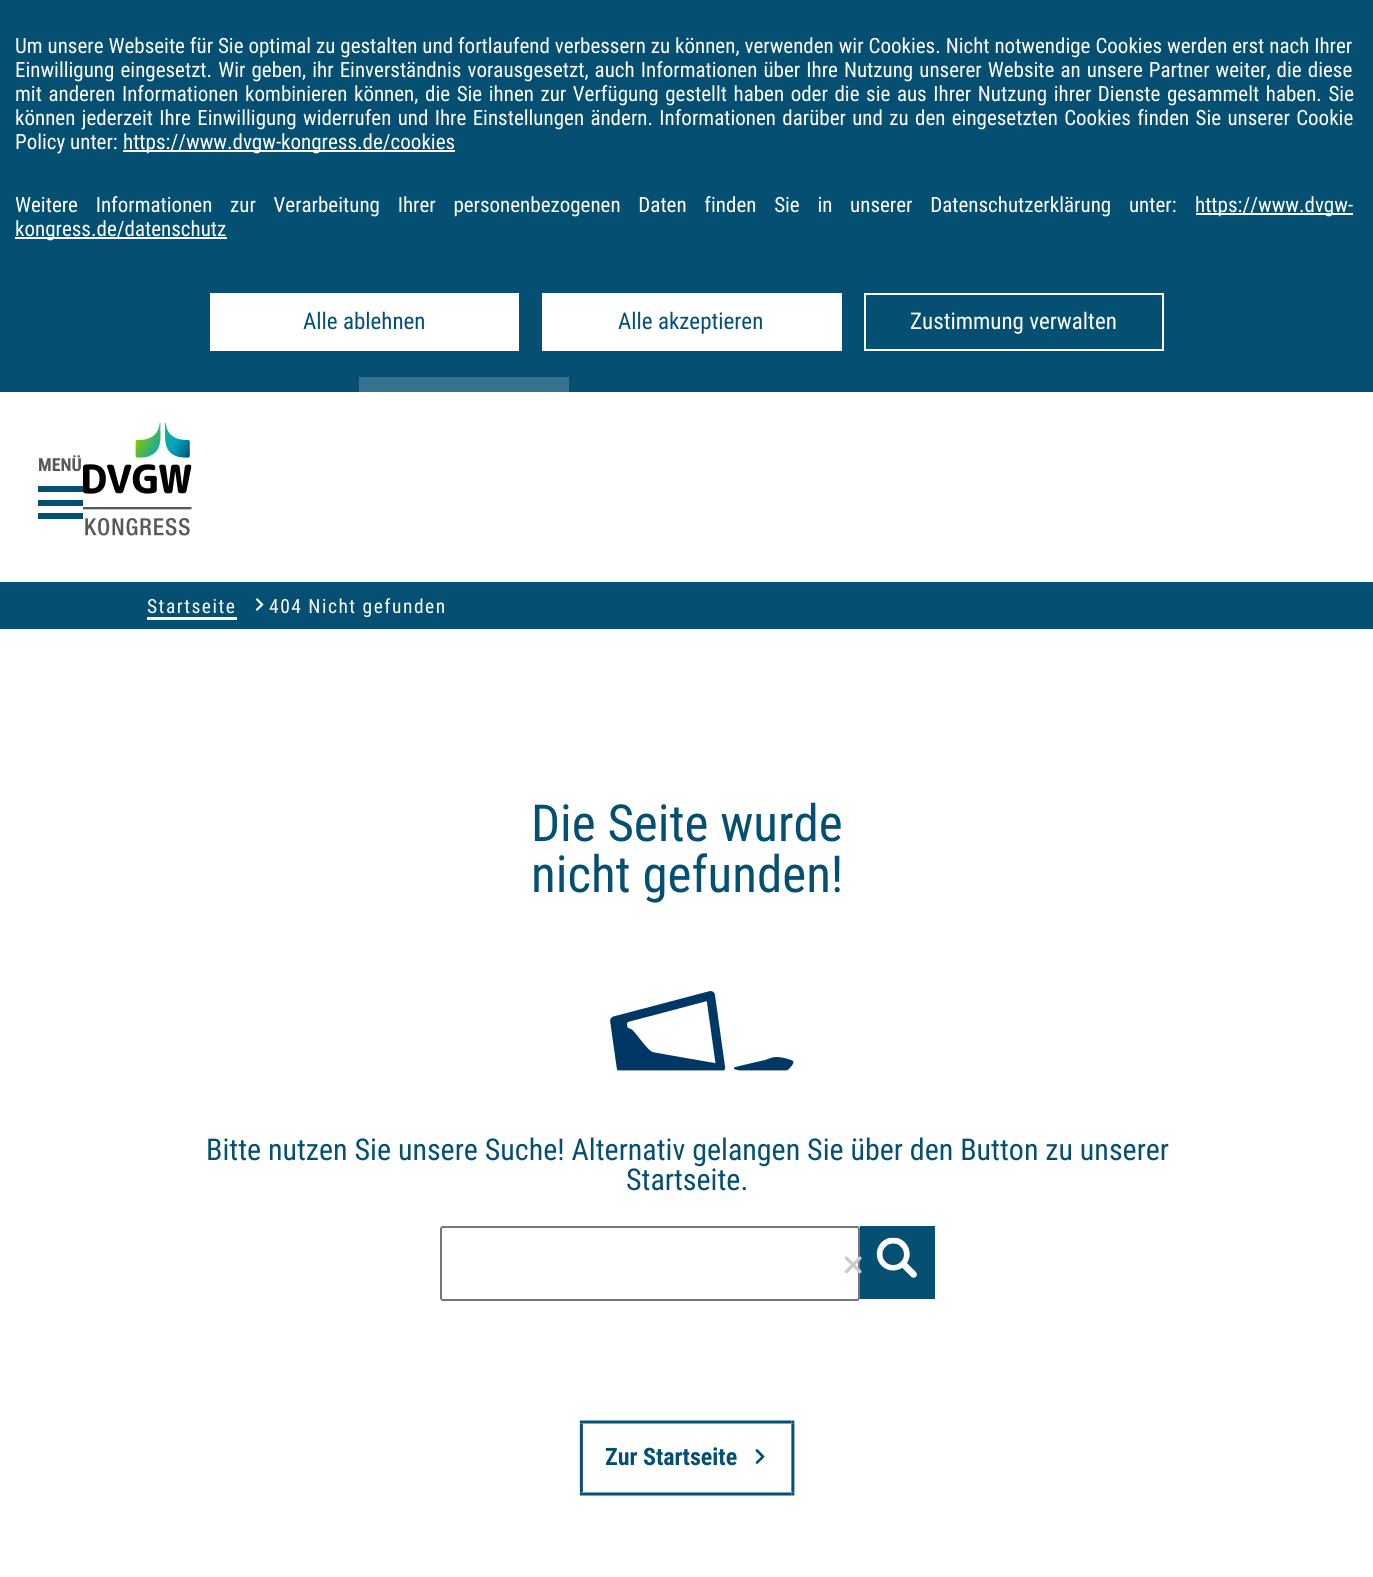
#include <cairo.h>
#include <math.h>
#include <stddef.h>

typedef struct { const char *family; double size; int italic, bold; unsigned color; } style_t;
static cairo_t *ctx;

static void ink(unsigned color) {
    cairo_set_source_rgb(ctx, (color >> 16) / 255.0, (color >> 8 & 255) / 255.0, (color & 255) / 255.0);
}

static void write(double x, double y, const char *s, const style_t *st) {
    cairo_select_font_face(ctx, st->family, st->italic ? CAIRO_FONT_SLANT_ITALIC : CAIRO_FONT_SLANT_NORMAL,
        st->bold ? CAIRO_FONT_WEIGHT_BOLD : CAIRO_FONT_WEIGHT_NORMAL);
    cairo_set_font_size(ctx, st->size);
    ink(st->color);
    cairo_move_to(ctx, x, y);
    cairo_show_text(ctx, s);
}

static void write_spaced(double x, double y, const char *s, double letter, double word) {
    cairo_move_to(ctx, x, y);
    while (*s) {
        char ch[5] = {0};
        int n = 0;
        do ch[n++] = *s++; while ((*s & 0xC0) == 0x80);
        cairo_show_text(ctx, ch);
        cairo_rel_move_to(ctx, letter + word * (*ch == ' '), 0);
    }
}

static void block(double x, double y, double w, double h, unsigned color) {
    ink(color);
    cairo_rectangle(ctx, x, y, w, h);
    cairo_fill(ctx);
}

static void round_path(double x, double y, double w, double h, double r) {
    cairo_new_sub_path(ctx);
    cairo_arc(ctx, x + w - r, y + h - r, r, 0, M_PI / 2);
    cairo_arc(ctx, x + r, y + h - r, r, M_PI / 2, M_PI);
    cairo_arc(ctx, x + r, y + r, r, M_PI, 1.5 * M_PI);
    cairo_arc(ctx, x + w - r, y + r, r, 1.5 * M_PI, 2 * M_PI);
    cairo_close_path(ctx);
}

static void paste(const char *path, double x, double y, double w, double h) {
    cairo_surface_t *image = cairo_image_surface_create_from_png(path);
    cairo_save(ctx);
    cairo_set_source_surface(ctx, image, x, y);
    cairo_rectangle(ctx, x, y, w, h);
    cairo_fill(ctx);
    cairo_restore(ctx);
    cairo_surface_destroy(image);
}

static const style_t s1 = {"Roboto Condensed", 21, 0, 0, 0xffffff};
static const style_t s2 = {"Roboto Condensed", 23, 0, 0, 0x054f73};
static const style_t s3 = {"Roboto Condensed", 23, 0, 0, 0xffffff};
static const style_t s4 = {"Roboto Condensed", 18, 0, 1, 0x58585a};
static const style_t s5 = {"Roboto Condensed", 51, 0, 0, 0x054f73};
static const style_t s6 = {"Roboto Condensed", 30, 0, 0, 0x054f73};
static const style_t s7 = {"Roboto Condensed", 24, 0, 1, 0x054f73};

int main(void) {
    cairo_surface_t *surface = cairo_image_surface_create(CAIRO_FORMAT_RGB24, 1373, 1577);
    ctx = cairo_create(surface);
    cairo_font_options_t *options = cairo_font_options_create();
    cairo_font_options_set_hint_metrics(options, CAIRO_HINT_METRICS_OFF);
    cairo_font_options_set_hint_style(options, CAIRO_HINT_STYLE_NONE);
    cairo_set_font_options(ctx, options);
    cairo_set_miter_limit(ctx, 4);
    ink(0xffffff);
    cairo_paint(ctx);
    block(0, 0, 1373, 392, 0x054f73);
    block(359, 377, 210, 15, 0x37728f);
    cairo_select_font_face(ctx, "Roboto Condensed", CAIRO_FONT_SLANT_NORMAL, CAIRO_FONT_WEIGHT_NORMAL);
    cairo_set_font_size(ctx, 21);
    ink(0xffffff);
    write_spaced(15, 53, "Um unsere Webseite für Sie optimal zu gestalten und fortlaufend verbessern zu können, verwenden wir Cookies. Nicht notwendige Cookies werden erst nach Ihrer", 0, 0.1);
    write_spaced(15, 77, "Einwilligung eingesetzt. Wir geben, ihr Einverständnis vorausgesetzt, auch Informationen über Ihre Nutzung unserer Website an unsere Partner weiter, die diese", 0, 1.25);
    write_spaced(15, 101, "mit anderen Informationen kombinieren können, die Sie ihnen zur Verfügung gestellt haben oder die sie aus Ihrer Nutzung ihrer Dienste gesammelt haben. Sie", 0, 1.75);
    write_spaced(15, 125, "können jederzeit Ihre Einwilligung widerrufen und Ihre Einstellungen ändern. Informationen darüber und zu den eingesetzten Cookies finden Sie unserer Cookie", 0, 1.5);
    write(15, 149, "Policy unter:", &s1);
    block(123, 150, 332, 2, 0xffffff);
    write(123, 149, "https://www.dvgw-kongress.de/cookies", &s1);
    write_spaced(15, 212, "Weitere Informationen zur Verarbeitung Ihrer personenbezogenen Daten finden Sie in unserer Datenschutzerklärung unter:", 0, 12.9);
    block(1196, 213, 157, 2, 0xffffff);
    write(1195, 212, "https://www.dvgw-", &s1);
    block(15, 237, 212, 2, 0xffffff);
    write(15, 236, "kongress.de/datenschutz", &s1);
    block(210, 293, 309, 58, 0xffffff);
    write(303, 329, "Alle ablehnen", &s2);
    block(542, 293, 300, 58, 0xffffff);
    write(618, 329, "Alle akzeptieren", &s2);
    cairo_rectangle(ctx, 865, 294, 298, 56);
    ink(0xffffff);
    cairo_stroke(ctx);
    write(910, 329, "Zustimmung verwalten", &s3);
    write(38, 471, "MENÜ", &s4);
    block(38, 486, 45, 6, 0x054f73);
    block(38, 500, 45, 6, 0x054f73);
    block(38, 513, 45, 6, 0x054f73);
    paste("pic1.png", 83, 423, 109, 113);
    block(0, 582, 1373, 47, 0x054f73);
    cairo_select_font_face(ctx, "Roboto Condensed", CAIRO_FONT_SLANT_NORMAL, CAIRO_FONT_WEIGHT_NORMAL);
    cairo_set_font_size(ctx, 19.5);
    ink(0xffffff);
    write_spaced(147, 613, "Startseite", 1.5, 0);
    block(147, 617, 90, 3, 0xffffff);
    paste("pic2.png", 255, 598, 9, 13);
    write_spaced(269, 613, "404 Nicht gefunden", 1.5, 0);
    write(531, 841, "Die Seite wurde", &s5);
    write(531, 892, "nicht gefunden!", &s5);
    paste("pic3.png", 610, 991, 184, 80);
    write(206, 1160, "Bitte nutzen Sie unsere Suche! Alternativ gelangen Sie über den Button zu unserer", &s6);
    write(626, 1190, "Startseite.", &s6);
    round_path(441, 1227, 418, 73, 2);
    ink(0x767676);
    cairo_stroke(ctx);
    block(860, 1226, 75, 73, 0x054f73);
    paste("pic4.png", 876, 1237, 41, 41);
    paste("pic5.png", 844, 1256, 18, 18);
    paste("pic6.png", 579, 1420, 216, 76);
    write(605, 1465, "Zur Startseite", &s7);
    paste("pic7.png", 755, 1449, 10, 15);
    cairo_surface_write_to_png(surface, "screenshot.png");
    cairo_font_options_destroy(options);
    cairo_destroy(ctx);
    cairo_surface_destroy(surface);
    return 0;
}
